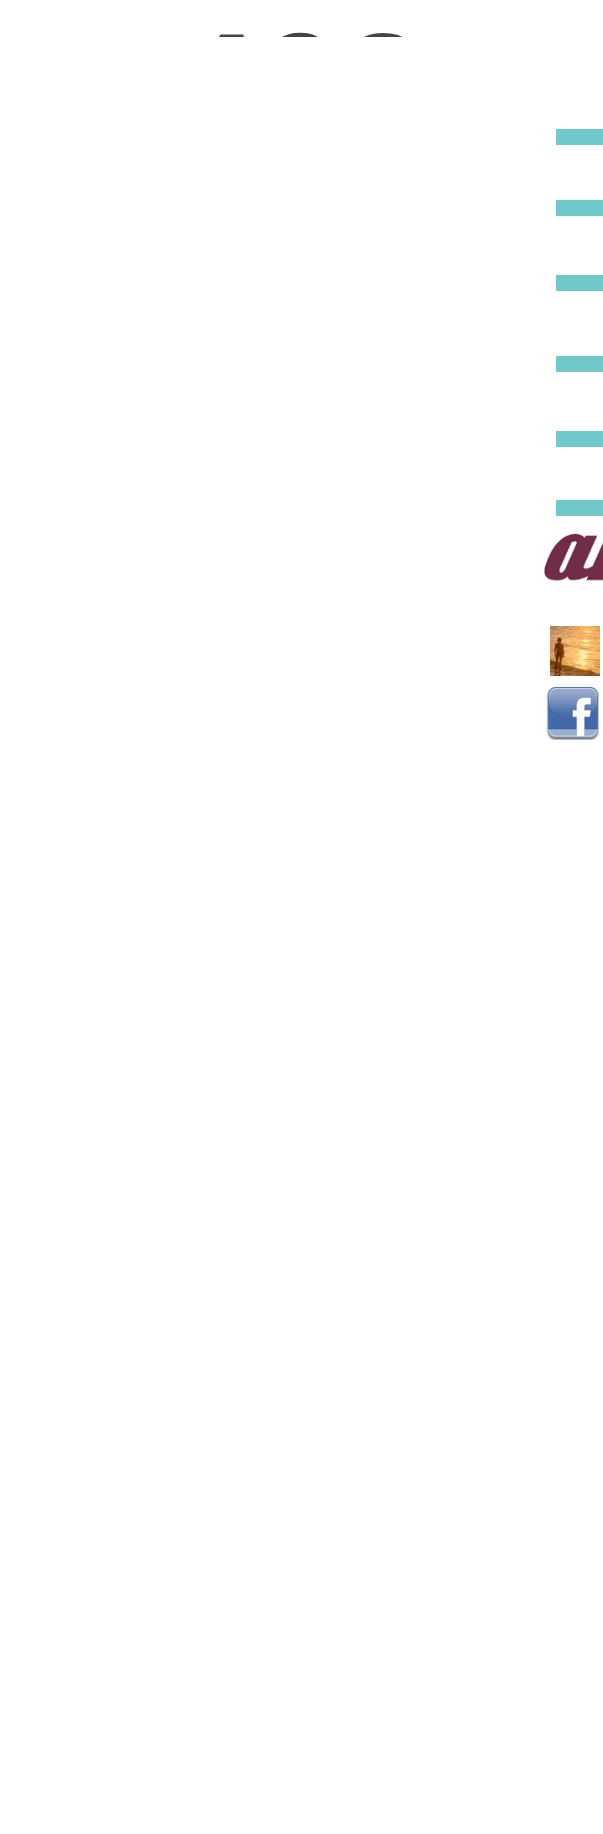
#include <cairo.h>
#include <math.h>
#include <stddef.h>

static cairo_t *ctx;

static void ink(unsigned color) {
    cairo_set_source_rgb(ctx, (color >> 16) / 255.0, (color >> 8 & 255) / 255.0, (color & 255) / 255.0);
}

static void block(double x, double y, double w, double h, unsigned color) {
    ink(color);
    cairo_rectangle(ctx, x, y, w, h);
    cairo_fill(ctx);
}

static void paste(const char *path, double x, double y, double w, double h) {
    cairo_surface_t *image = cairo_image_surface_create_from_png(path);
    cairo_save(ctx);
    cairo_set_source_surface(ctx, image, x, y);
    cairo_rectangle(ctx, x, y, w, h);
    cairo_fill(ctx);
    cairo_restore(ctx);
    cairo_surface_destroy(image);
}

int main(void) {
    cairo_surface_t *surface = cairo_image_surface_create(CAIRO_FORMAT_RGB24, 603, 1834);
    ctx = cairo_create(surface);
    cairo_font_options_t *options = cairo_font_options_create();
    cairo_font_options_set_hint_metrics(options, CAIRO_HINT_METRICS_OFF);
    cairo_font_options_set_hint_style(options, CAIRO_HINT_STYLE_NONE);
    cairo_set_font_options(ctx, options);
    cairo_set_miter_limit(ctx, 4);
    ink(0xffffff);
    cairo_paint(ctx);
    paste("pic1.png", 219, 32, 184, 5);
    block(556, 129, 47, 16, 0x6fc9ca);
    block(556, 200, 47, 16, 0x6fc9ca);
    block(556, 275, 47, 16, 0x6fc9ca);
    block(556, 356, 47, 16, 0x6fc9ca);
    block(556, 431, 47, 16, 0x6fc9ca);
    block(556, 500, 47, 16, 0x6fc9ca);
    paste("pic2.png", 544, 533, 59, 48);
    paste("pic3.png", 550, 626, 50, 50);
    paste("pic4.png", 546, 687, 53, 53);
    cairo_surface_write_to_png(surface, "screenshot.png");
    cairo_font_options_destroy(options);
    cairo_destroy(ctx);
    cairo_surface_destroy(surface);
    return 0;
}
